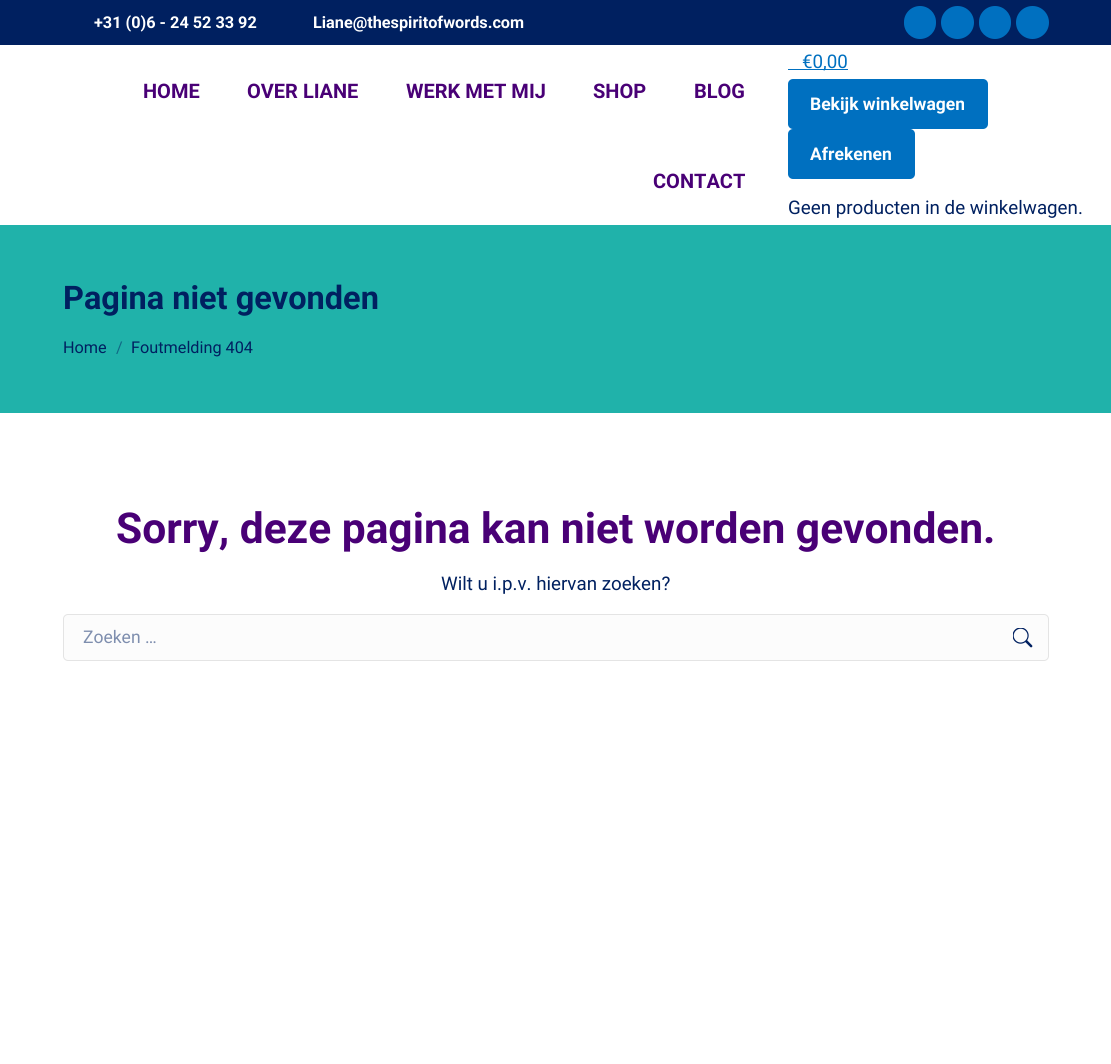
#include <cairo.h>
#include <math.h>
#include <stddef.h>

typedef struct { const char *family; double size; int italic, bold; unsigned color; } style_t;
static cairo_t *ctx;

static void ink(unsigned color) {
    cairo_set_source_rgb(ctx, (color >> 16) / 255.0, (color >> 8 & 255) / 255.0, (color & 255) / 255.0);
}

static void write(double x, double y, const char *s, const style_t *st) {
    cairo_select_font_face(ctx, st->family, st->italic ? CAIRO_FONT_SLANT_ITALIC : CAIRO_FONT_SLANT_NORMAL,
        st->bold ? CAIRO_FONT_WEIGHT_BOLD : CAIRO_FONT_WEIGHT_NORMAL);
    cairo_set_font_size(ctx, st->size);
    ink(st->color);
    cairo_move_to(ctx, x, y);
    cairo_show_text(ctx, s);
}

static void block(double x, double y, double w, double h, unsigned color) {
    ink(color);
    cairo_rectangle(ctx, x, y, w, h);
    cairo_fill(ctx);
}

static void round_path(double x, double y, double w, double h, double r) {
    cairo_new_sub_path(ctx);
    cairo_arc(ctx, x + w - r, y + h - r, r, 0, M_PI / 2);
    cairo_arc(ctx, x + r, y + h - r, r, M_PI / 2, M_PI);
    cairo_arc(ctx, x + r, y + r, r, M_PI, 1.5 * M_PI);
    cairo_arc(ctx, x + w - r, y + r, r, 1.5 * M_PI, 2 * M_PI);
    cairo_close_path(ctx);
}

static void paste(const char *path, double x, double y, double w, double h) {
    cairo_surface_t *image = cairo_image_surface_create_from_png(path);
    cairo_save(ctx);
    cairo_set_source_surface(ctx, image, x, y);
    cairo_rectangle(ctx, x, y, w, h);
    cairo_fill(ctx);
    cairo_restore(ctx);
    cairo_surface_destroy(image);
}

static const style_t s1 = {"Roboto", 16.25, 0, 1, 0xffffff};
static const style_t s2 = {"Roboto", 20, 0, 1, 0x490076};
static const style_t s3 = {"Roboto", 18.75, 0, 0, 0x0070c0};
static const style_t s4 = {"Roboto", 17.5, 0, 1, 0xffffff};
static const style_t s5 = {"Roboto", 18.75, 0, 0, 0x002060};
static const style_t s6 = {"Roboto", 32.5, 0, 1, 0x002060};
static const style_t s7 = {"Roboto", 16.25, 0, 0, 0x002060};
static const style_t s8 = {"Roboto", 16.25, 0, 0, 0x106985};
static const style_t s9 = {"Roboto", 42.5, 0, 1, 0x490076};
static const style_t s10 = {"Roboto", 17.5, 0, 0, 0x7e8eae};

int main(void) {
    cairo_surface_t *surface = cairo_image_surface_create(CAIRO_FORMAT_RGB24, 1111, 1064);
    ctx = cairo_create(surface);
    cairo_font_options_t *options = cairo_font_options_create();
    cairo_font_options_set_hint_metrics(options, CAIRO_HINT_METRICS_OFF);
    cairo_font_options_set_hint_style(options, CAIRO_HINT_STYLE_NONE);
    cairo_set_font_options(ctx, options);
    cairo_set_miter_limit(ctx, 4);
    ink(0xffffff);
    cairo_paint(ctx);
    block(0, 0, 1111, 45, 0x002060);
    write(94, 28, "+31 (0)6 - 24 52 33 92", &s1);
    write(313, 28, "Liane@thespiritofwords.com", &s1);
    ink(0x0070c0);
    round_path(904, 6, 32, 33, 16);
    cairo_fill(ctx);
    cairo_arc(ctx, 957.5, 22.5, 16.5, 0, 2 * M_PI);
    cairo_fill(ctx);
    round_path(979, 6, 32, 33, 16);
    cairo_fill(ctx);
    cairo_arc(ctx, 1032.5, 22.5, 16.5, 0, 2 * M_PI);
    cairo_fill(ctx);
    write(143, 98, "HOME", &s2);
    write(247, 98, "OVER LIANE", &s2);
    write(406, 98, "WERK MET MIJ", &s2);
    write(593, 98, "SHOP", &s2);
    write(694, 98, "BLOG", &s2);
    write(653, 188, "CONTACT", &s2);
    block(788, 69, 60, 1, 0x0070c0);
    write(802, 68, "€0,00", &s3);
    round_path(788, 79, 200, 50, 5);
    cairo_fill(ctx);
    write(810, 110, "Bekijk winkelwagen", &s4);
    ink(0x0070c0);
    round_path(788, 129, 127, 50, 5);
    cairo_fill(ctx);
    write(810, 160, "Afrekenen", &s4);
    write(788, 214, "Geen producten in de winkelwagen.", &s5);
    block(0, 225, 1111, 188, 0x20b2aa);
    write(63, 309, "Pagina niet gevonden", &s6);
    write(63, 353, "Home", &s7);
    write(116, 353, "/", &s8);
    write(131, 353, "Foutmelding 404", &s7);
    write(116, 543, "Sorry, deze pagina kan niet worden gevonden.", &s9);
    write(441, 590, "Wilt u i.p.v. hiervan zoeken?", &s5);
    ink(0xfcfcfc);
    round_path(63.5, 614.5, 985, 46, 4.5);
    cairo_fill_preserve(ctx);
    ink(0xe4e4e4);
    cairo_set_line_width(ctx, 1);
    cairo_stroke(ctx);
    write(83, 643, "Zoeken …", &s10);
    paste("pic1.png", 1013, 628, 20, 20);
    cairo_surface_write_to_png(surface, "screenshot.png");
    cairo_font_options_destroy(options);
    cairo_destroy(ctx);
    cairo_surface_destroy(surface);
    return 0;
}
